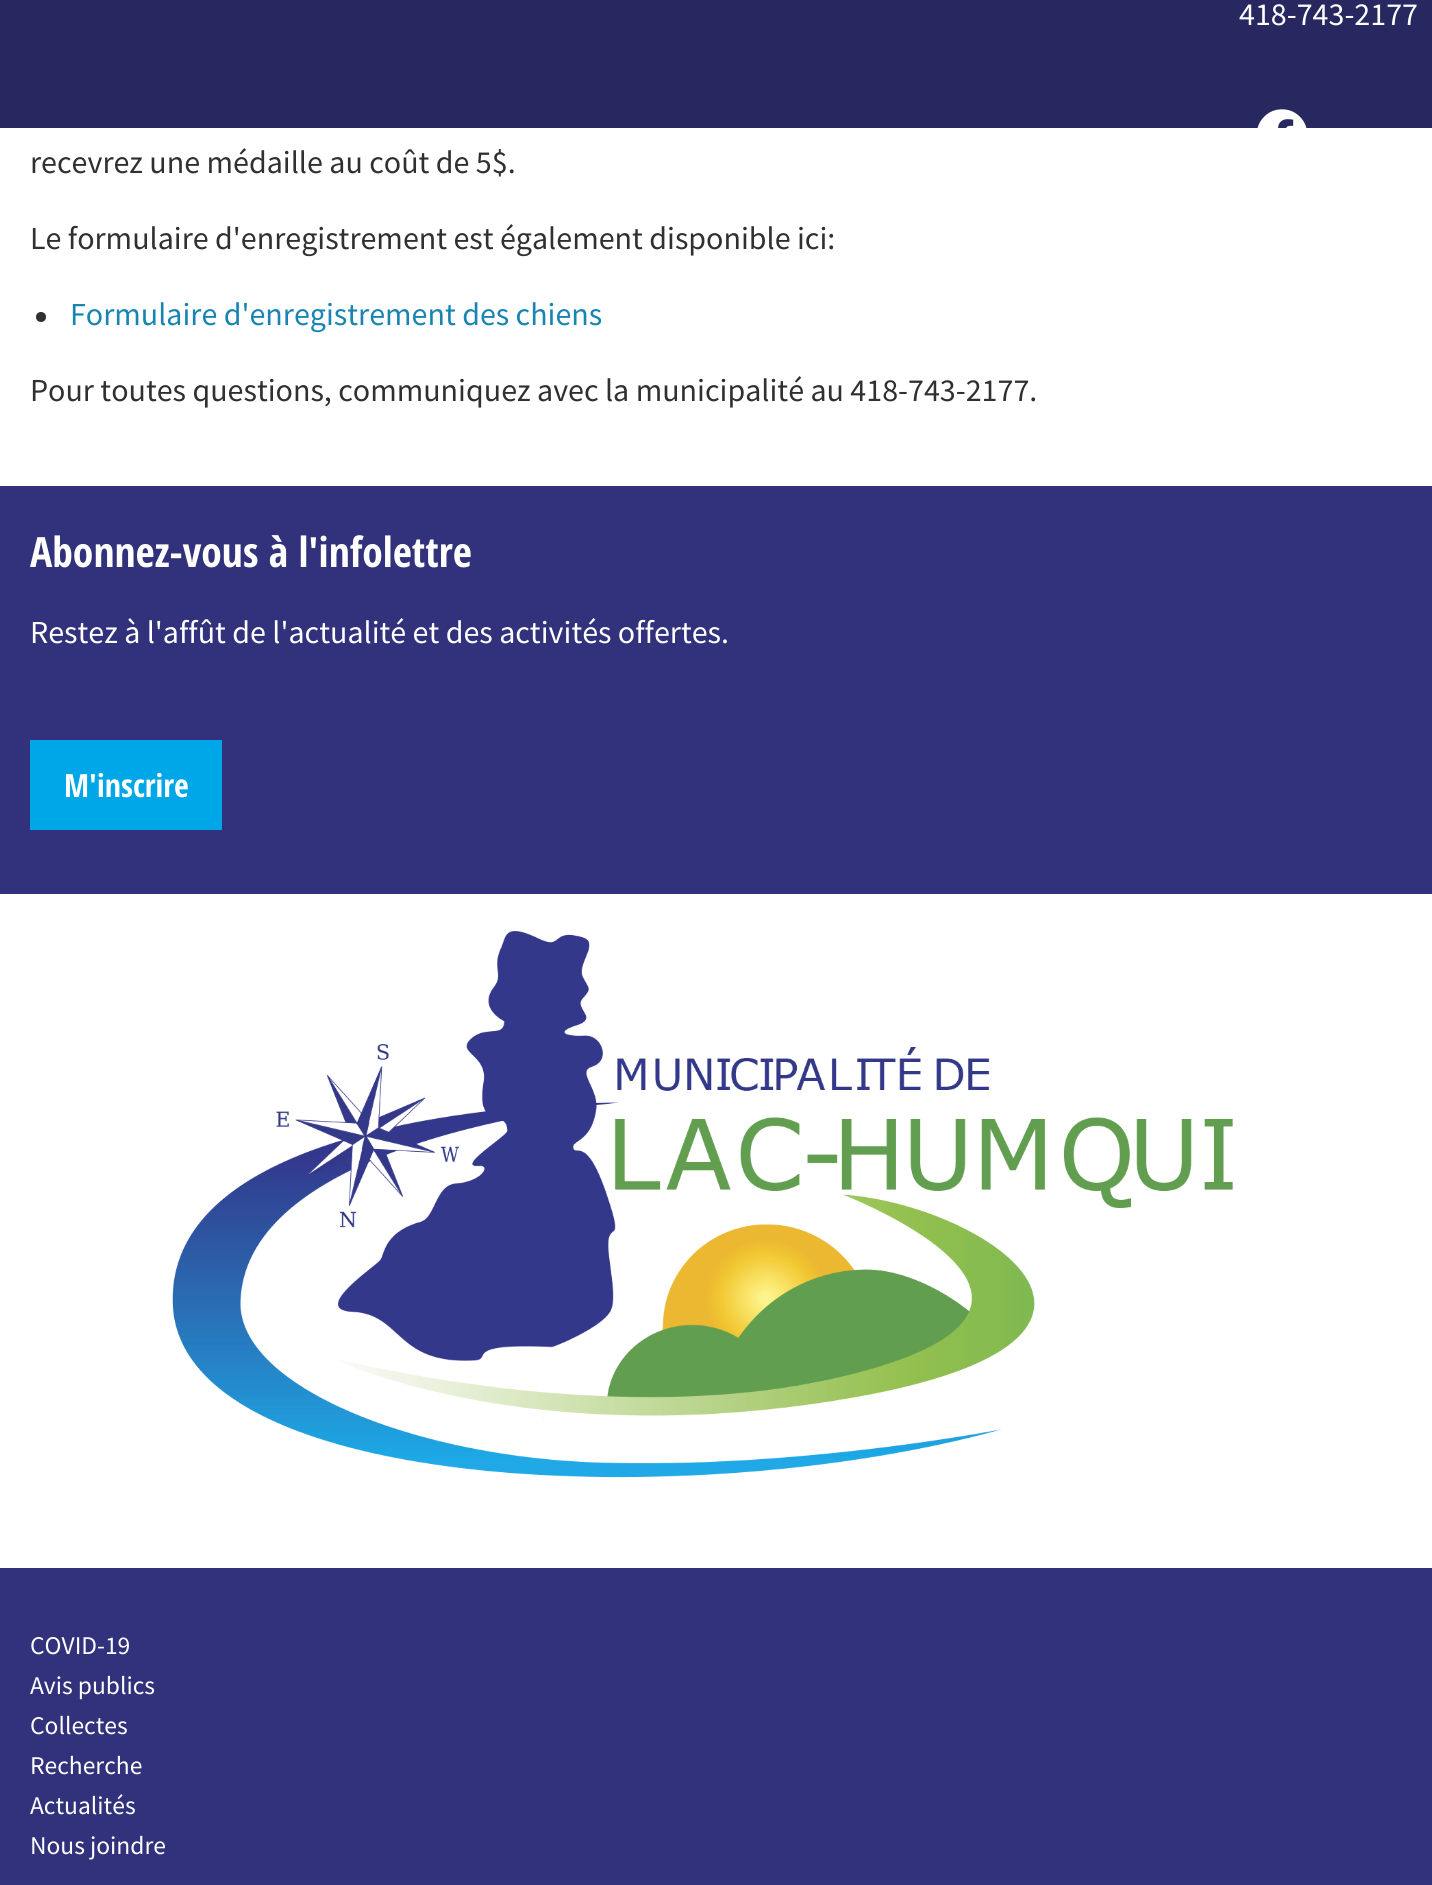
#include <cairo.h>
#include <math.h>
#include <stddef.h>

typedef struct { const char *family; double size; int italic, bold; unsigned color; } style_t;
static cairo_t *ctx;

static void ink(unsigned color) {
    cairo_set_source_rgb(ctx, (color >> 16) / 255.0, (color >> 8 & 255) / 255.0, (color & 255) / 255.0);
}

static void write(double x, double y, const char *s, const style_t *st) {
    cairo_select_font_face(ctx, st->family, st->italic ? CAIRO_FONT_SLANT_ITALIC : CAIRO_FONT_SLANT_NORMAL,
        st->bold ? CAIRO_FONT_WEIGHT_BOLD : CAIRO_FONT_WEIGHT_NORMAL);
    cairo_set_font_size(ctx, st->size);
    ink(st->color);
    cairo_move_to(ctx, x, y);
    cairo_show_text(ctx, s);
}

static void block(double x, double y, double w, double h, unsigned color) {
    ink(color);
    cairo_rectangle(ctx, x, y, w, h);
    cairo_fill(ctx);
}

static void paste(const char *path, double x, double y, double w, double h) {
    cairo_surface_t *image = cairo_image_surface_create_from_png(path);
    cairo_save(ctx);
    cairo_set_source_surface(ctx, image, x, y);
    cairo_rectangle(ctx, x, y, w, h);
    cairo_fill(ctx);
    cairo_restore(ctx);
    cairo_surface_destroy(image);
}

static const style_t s1 = {"Source Sans Pro", 32, 0, 0, 0xffffff};
static const style_t s2 = {"Source Sans Pro", 32, 0, 0, 0x303030};
static const style_t s3 = {"Source Sans Pro", 32, 0, 0, 0x1784b2};
static const style_t s4 = {"Open Sans Condensed", 41.6, 0, 1, 0xffffff};
static const style_t s5 = {"Open Sans Condensed", 32, 0, 1, 0xffffff};
static const style_t s6 = {"Source Sans Pro", 25.5, 0, 0, 0xffffff};

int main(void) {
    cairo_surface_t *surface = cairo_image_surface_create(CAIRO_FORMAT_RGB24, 1432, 1885);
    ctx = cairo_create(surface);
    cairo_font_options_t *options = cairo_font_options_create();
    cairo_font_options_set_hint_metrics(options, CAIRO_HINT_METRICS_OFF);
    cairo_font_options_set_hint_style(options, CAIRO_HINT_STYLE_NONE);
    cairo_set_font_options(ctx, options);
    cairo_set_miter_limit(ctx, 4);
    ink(0xffffff);
    cairo_paint(ctx);
    block(0, 0, 1432, 128, 0x282861);
    write(1239, 25, "418-743-2177", &s1);
    paste("pic1.png", 1257, 109, 50, 27);
    write(30, 173, "recevrez une médaille au coût de 5$.", &s2);
    write(30, 249, "Le formulaire d'enregistrement est également disponible ici:", &s2);
    cairo_new_path(ctx);
    cairo_arc(ctx, 41, 317, 5, 0, 2 * M_PI);
    cairo_fill(ctx);
    write(70, 325, "Formulaire d'enregistrement des chiens", &s3);
    write(30, 401, "Pour toutes questions, communiquez avec la municipalité au 418-743-2177.", &s2);
    block(0, 486, 1432, 408, 0x32327c);
    write(30, 567, "Abonnez-vous à l'infolettre", &s4);
    write(30, 643, "Restez à l'affût de l'actualité et des activités offertes.", &s1);
    block(30, 740, 192, 90, 0x00a7e8);
    write(64, 797, "M'inscrire", &s5);
    paste("pic2.png", 172, 931, 1061, 547);
    block(0, 1568, 1432, 317, 0x32327c);
    write(30, 1654, "COVID-19", &s6);
    write(30, 1694, "Avis publics", &s6);
    write(30, 1734, "Collectes", &s6);
    write(30, 1774, "Recherche", &s6);
    write(30, 1814, "Actualités", &s6);
    write(30, 1854, "Nous joindre", &s6);
    cairo_surface_write_to_png(surface, "screenshot.png");
    cairo_font_options_destroy(options);
    cairo_destroy(ctx);
    cairo_surface_destroy(surface);
    return 0;
}
